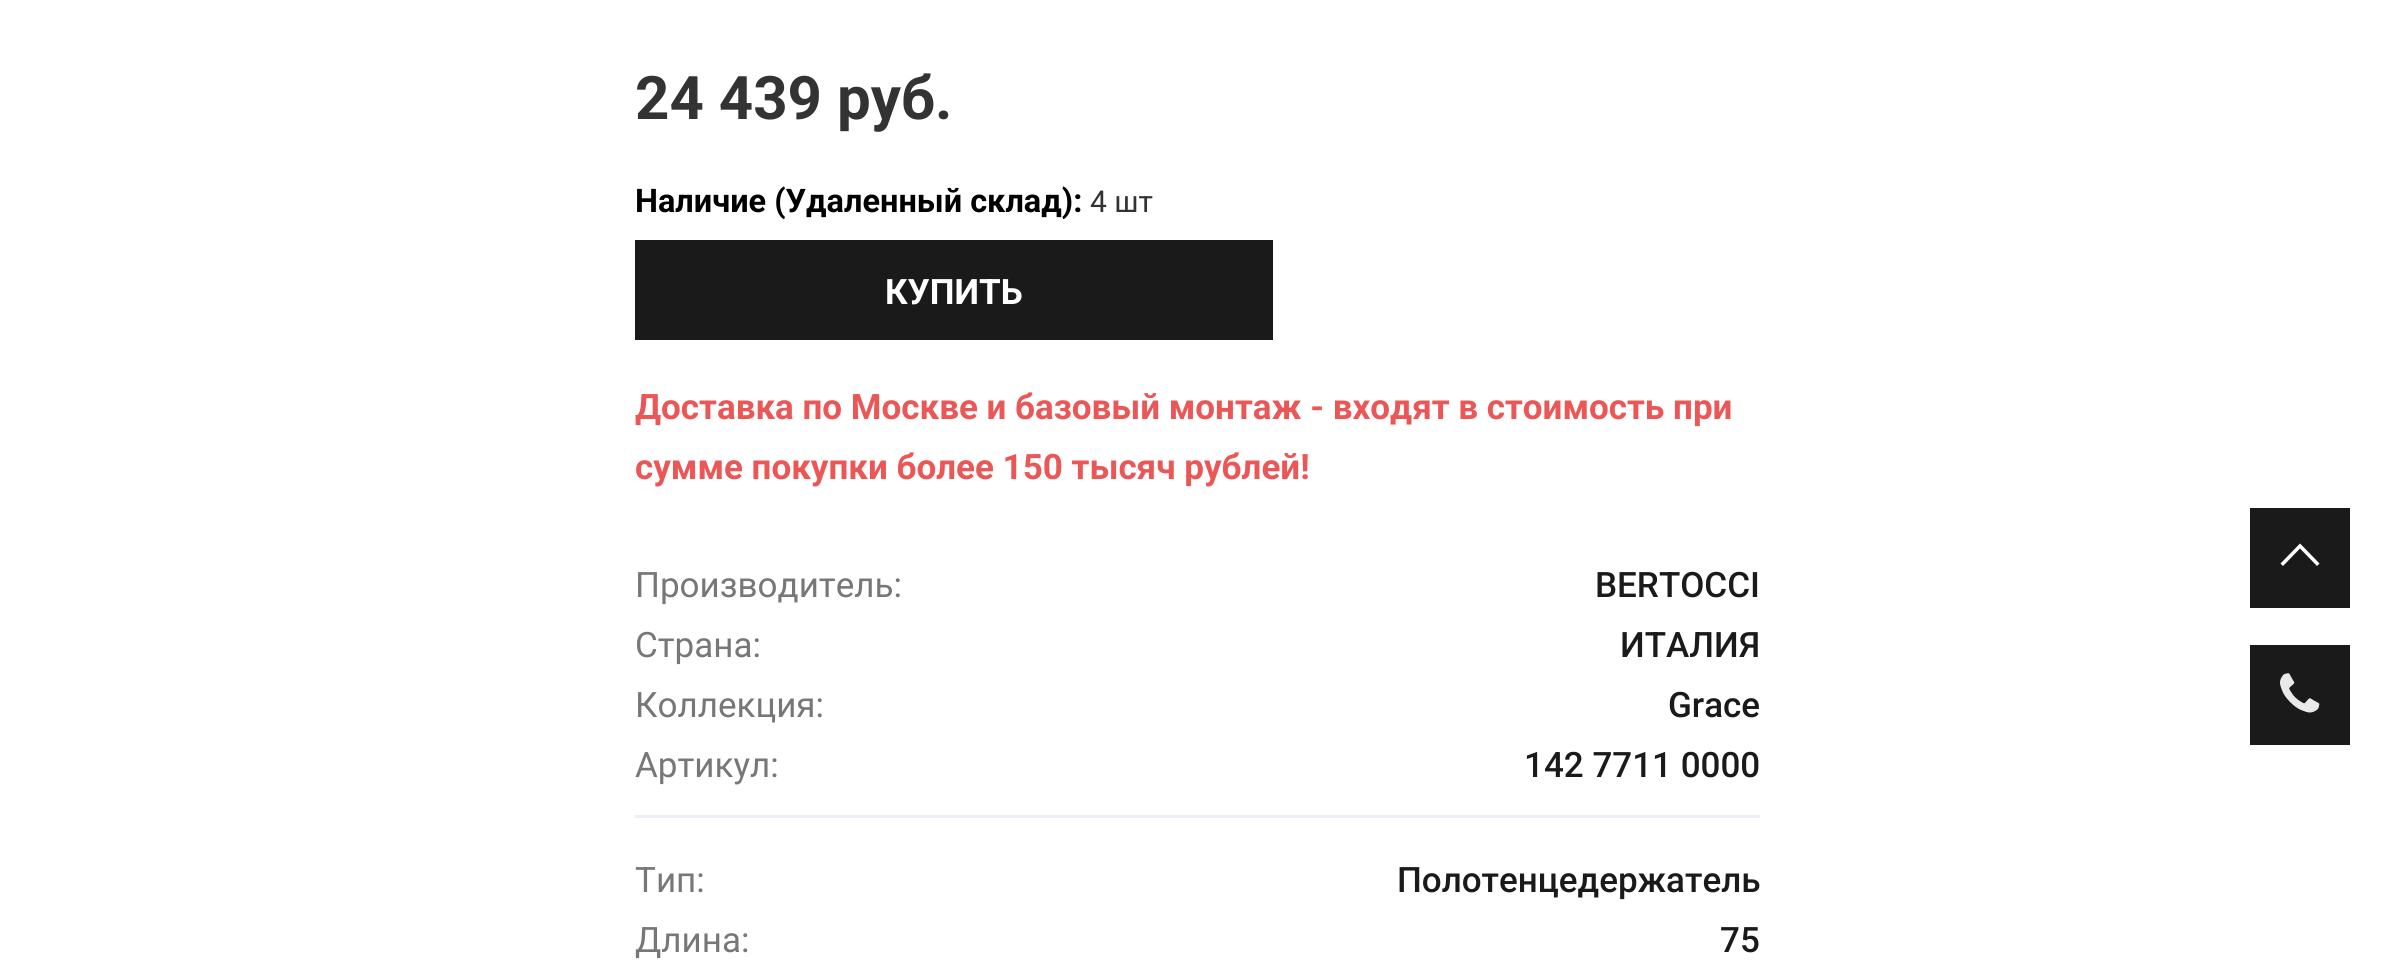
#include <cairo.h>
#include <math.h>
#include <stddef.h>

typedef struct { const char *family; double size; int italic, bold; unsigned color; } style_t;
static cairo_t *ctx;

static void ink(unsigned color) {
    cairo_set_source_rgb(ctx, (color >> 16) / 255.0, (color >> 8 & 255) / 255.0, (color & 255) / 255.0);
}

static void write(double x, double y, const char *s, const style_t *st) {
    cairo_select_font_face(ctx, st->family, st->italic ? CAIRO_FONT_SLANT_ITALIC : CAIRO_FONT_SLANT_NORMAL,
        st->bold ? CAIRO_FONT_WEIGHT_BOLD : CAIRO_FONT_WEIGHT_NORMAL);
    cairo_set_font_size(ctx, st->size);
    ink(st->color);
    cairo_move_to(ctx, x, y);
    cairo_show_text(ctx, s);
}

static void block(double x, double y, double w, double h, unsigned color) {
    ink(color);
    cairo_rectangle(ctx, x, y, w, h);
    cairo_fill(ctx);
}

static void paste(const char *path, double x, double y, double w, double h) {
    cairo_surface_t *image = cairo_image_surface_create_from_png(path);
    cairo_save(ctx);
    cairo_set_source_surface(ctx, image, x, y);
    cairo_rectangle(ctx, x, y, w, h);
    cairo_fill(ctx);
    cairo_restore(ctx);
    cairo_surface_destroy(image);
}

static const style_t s1 = {"Roboto", 60, 0, 1, 0x333333};
static const style_t s2 = {"Roboto", 32.5, 0, 1, 0x000000};
static const style_t s3 = {"Roboto", 30, 0, 0, 0x333333};
static const style_t s4 = {"Roboto", 35, 0, 1, 0xffffff};
static const style_t s5 = {"Roboto", 35, 0, 1, 0xeb5757};
static const style_t s6 = {"Roboto", 35, 0, 0, 0x777777};
static const style_t s7 = {"Roboto Medium", 35, 0, 0, 0x1a1a1a};

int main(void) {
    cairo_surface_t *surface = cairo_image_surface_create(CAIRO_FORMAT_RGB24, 2394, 969);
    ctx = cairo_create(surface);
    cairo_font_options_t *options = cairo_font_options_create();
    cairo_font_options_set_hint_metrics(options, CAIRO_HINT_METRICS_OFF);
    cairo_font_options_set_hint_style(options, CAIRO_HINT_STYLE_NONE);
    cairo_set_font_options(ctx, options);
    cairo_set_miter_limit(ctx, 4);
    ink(0xffffff);
    cairo_paint(ctx);
    write(635, 119, "24 439 руб.", &s1);
    write(635, 212, "Наличие (Удаленный склад):", &s2);
    write(1090, 212, "4 шт", &s3);
    block(635, 240, 638, 100, 0x1a1a1a);
    write(885, 304, "КУПИТЬ", &s4);
    write(635, 419, "Доставка по Москве и базовый монтаж - входят в стоимость при", &s5);
    write(635, 479, "сумме покупки более 150 тысяч рублей!", &s5);
    write(635, 597, "Производитель:", &s6);
    write(1595, 597, "BERTOCCI", &s7);
    write(635, 657, "Страна:", &s6);
    write(1620, 657, "ИТАЛИЯ", &s7);
    write(635, 717, "Коллекция:", &s6);
    write(1668, 717, "Grace", &s7);
    write(635, 777, "Артикул:", &s6);
    write(1524, 777, "142 7711 0000", &s7);
    block(635, 815, 1125, 3, 0xeceff8);
    write(635, 892, "Тип:", &s6);
    write(1397, 892, "Полотенцедержатель", &s7);
    write(635, 952, "Длина:", &s6);
    write(1720, 952, "75", &s7);
    block(2250, 508, 100, 100, 0x1a1a1a);
    ink(0xffffff);
    cairo_new_path(ctx);
    cairo_move_to(ctx, 2302.5, 546);
    cairo_line_to(ctx, 2300, 543.5);
    cairo_line_to(ctx, 2280.5, 563.5);
    cairo_line_to(ctx, 2283, 566);
    cairo_line_to(ctx, 2300, 548.5);
    cairo_line_to(ctx, 2317, 566);
    cairo_line_to(ctx, 2319.5, 563.5);
    cairo_close_path(ctx);
    cairo_fill(ctx);
    block(2250, 645, 100, 100, 0x1a1a1a);
    paste("pic1.png", 2280, 673, 40, 40);
    cairo_surface_write_to_png(surface, "screenshot.png");
    cairo_font_options_destroy(options);
    cairo_destroy(ctx);
    cairo_surface_destroy(surface);
    return 0;
}
